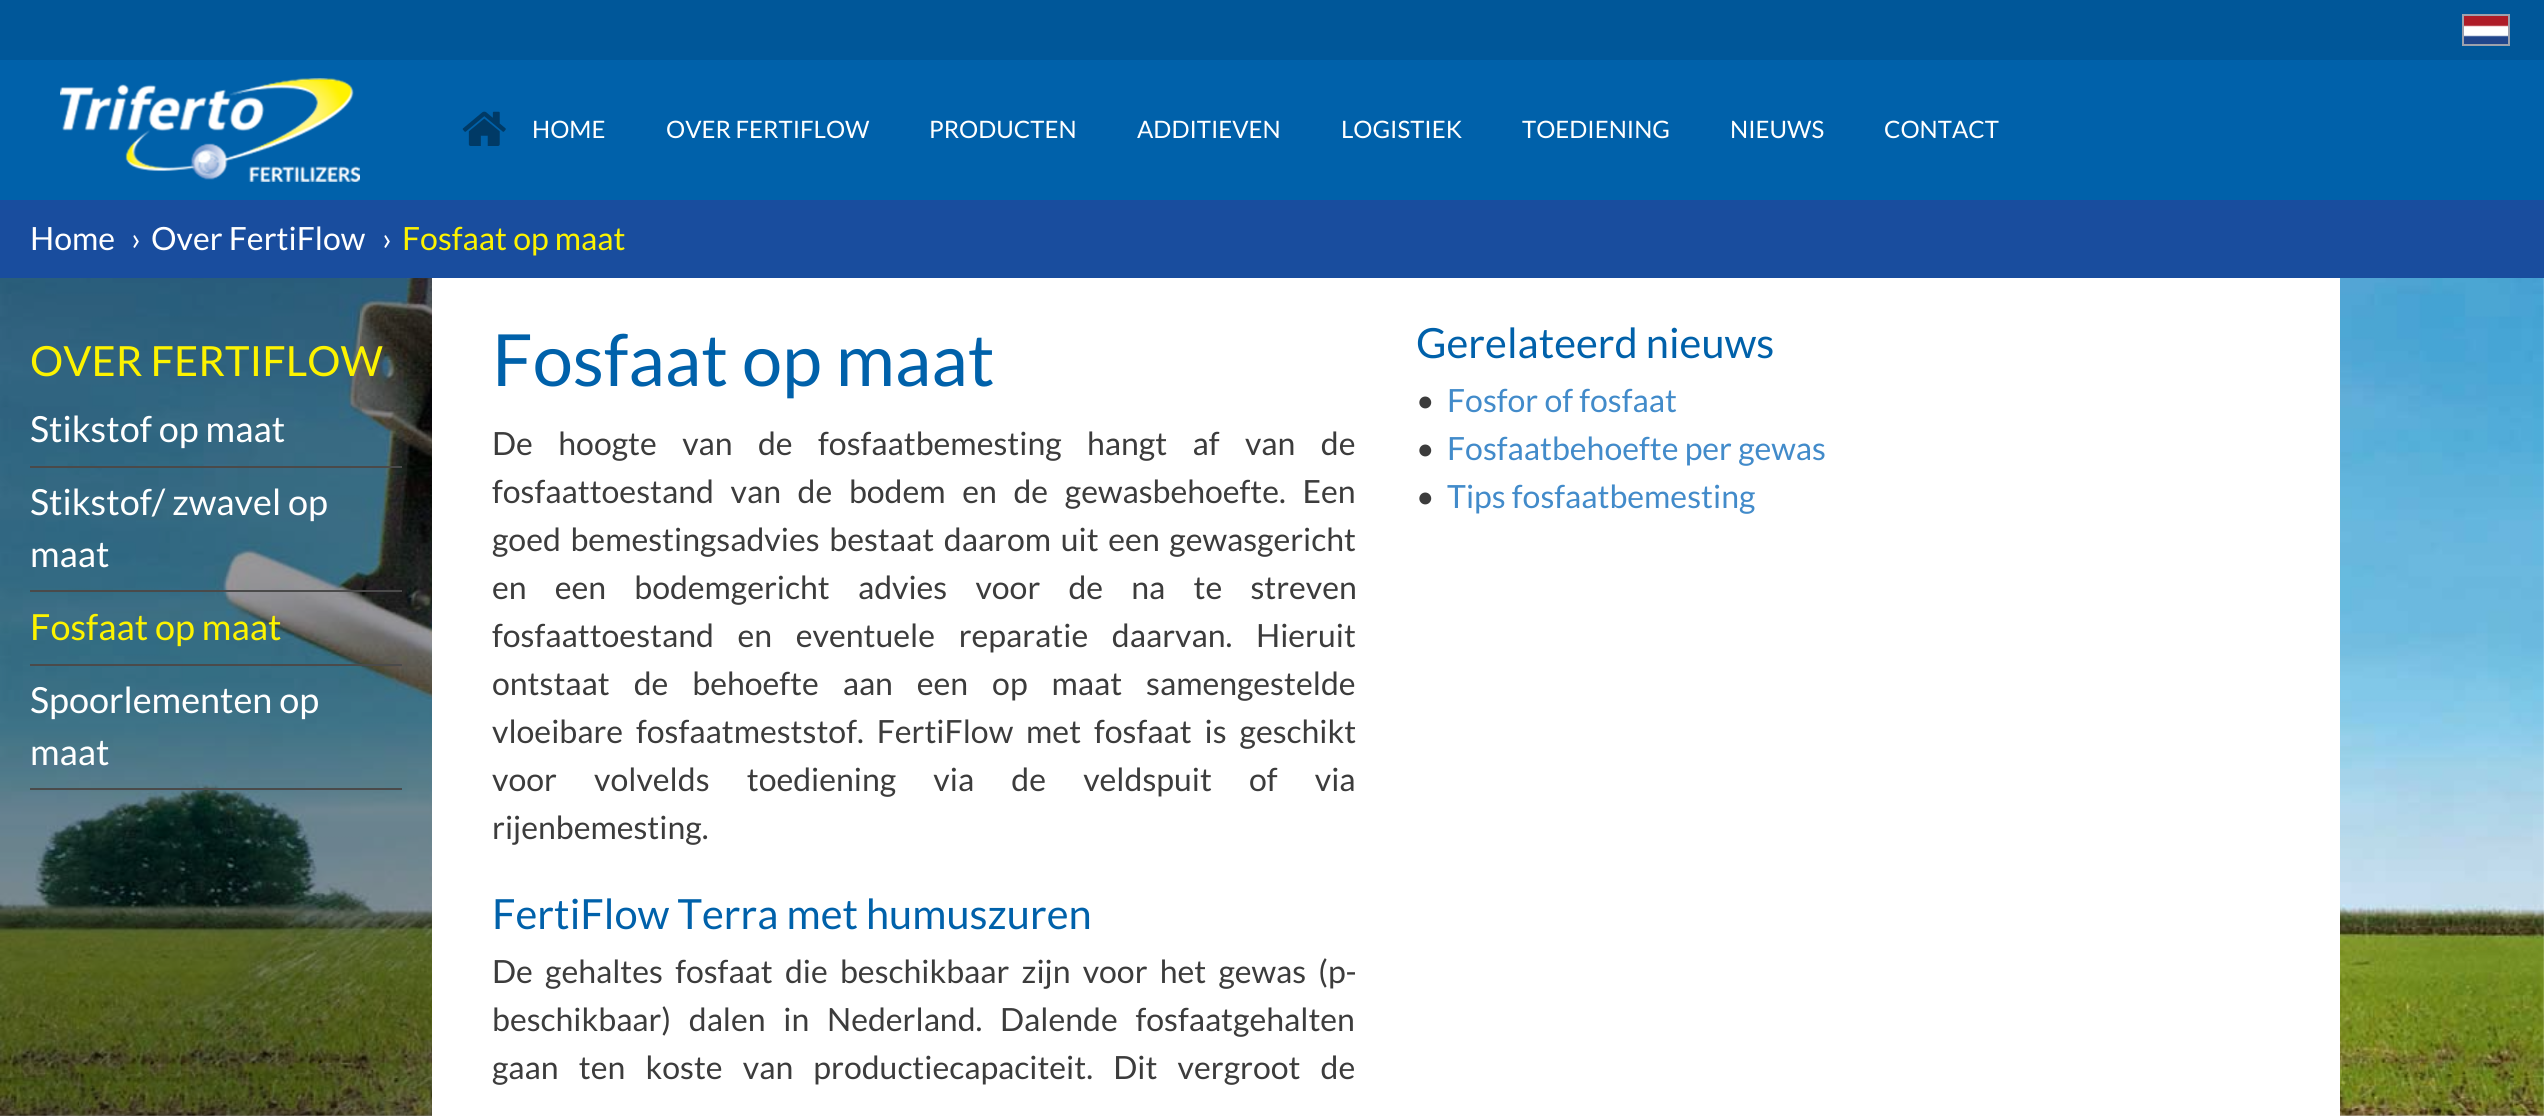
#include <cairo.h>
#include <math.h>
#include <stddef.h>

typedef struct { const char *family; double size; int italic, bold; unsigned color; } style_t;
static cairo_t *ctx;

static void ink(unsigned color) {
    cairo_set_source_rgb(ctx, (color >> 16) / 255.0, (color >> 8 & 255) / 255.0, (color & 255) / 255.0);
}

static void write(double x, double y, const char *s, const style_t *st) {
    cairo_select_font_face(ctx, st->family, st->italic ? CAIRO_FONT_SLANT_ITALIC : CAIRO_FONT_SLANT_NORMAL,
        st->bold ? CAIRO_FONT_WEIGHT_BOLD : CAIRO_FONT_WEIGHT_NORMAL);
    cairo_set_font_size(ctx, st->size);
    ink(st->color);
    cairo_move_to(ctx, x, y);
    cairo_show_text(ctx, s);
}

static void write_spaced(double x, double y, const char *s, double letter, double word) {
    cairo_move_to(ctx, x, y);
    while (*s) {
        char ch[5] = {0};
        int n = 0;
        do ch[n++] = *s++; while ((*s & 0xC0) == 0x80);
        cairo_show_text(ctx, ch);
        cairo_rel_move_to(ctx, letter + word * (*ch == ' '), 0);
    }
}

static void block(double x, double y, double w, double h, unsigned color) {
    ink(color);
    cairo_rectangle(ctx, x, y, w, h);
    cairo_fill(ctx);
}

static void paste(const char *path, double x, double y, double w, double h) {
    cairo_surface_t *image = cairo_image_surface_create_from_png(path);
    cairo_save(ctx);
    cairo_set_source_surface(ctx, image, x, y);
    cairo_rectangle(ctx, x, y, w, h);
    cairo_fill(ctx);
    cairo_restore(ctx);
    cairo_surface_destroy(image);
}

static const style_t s1 = {"Lato", 24, 0, 0, 0xffffff};
static const style_t s2 = {"Lato", 32, 0, 0, 0xffffff};
static const style_t s3 = {"Lato", 32, 0, 0, 0xfdf300};
static const style_t s4 = {"Lato", 41.6, 0, 0, 0xfdf300};
static const style_t s5 = {"Lato", 36, 0, 0, 0xffffff};
static const style_t s6 = {"Lato", 36, 0, 0, 0xfdf300};
static const style_t s7 = {"Lato", 72, 0, 0, 0x0061aa};
static const style_t s8 = {"Lato", 32, 0, 0, 0x3c3c3c};
static const style_t s9 = {"Lato", 41.6, 0, 0, 0x0061aa};
static const style_t s10 = {"Lato", 32, 0, 0, 0x428bca};

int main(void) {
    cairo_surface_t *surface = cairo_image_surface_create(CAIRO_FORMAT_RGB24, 2544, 1116);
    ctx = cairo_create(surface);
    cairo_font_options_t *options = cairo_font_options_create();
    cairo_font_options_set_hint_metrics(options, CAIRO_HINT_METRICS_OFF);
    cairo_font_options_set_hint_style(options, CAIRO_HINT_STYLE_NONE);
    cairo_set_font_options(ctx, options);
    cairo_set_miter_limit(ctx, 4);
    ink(0xffffff);
    cairo_paint(ctx);
    block(0, 60, 2544, 140, 0x0061aa);
    block(0, 0, 2544, 60, 0x005799);
    paste("pic1.png", 2464, 16, 44, 28);
    cairo_rectangle(ctx, 2463, 15, 46, 30);
    ink(0x9da1ad);
    cairo_stroke(ctx);
    paste("pic2.png", 60, 78, 300, 104);
    paste("pic3.png", 462, 111, 44, 35);
    write(532, 138, "HOME", &s1);
    write(666, 138, "OVER FERTIFLOW", &s1);
    write(929, 138, "PRODUCTEN", &s1);
    write(1137, 138, "ADDITIEVEN", &s1);
    write(1341, 138, "LOGISTIEK", &s1);
    write(1522, 138, "TOEDIENING", &s1);
    write(1730, 138, "NIEUWS", &s1);
    write(1884, 138, "CONTACT", &s1);
    block(0, 200, 2544, 78, 0x194d9e);
    write(30, 250, "Home", &s2);
    write(131, 250, "›", &s2);
    write(151, 250, "Over FertiFlow", &s2);
    write(382, 250, "›", &s2);
    write(402, 250, "Fosfaat op maat", &s3);
    paste("pic4.png", 0, 278, 2544, 838);
    cairo_set_source_rgba(ctx, 0, 0, 0, 0.4);
    cairo_rectangle(ctx, 0, 278, 432, 838);
    cairo_fill(ctx);
    write(30, 376, "OVER FERTIFLOW", &s4);
    block(30, 466, 372, 2, 0x4a4a4a);
    write(30, 442, "Stikstof op maat", &s5);
    block(30, 590, 372, 2, 0x4a4a4a);
    write(30, 515, "Stikstof/ zwavel op", &s5);
    write(30, 567, "maat", &s5);
    block(30, 664, 372, 2, 0x4a4a4a);
    write(30, 640, "Fosfaat op maat", &s6);
    block(30, 788, 372, 2, 0x4a4a4a);
    write(30, 713, "Spoorlementen op", &s5);
    write(30, 765, "maat", &s5);
    block(432, 278, 1908, 838, 0xffffff);
    write(492, 386, "Fosfaat op maat", &s7);
    cairo_set_font_size(ctx, 32);
    ink(0x3c3c3c);
    write_spaced(492, 455, "De hoogte van de fosfaatbemesting hangt af van de", 0, 19.25);
    write_spaced(492, 503, "fosfaattoestand van de bodem en de gewasbehoefte. Een", 0, 10.5);
    write_spaced(492, 551, "goed bemestingsadvies bestaat daarom uit een gewasgericht", 0, 3.5);
    write_spaced(492, 599, "en een bodemgericht advies voor de na te streven", 0, 22);
    write_spaced(492, 647, "fosfaattoestand en eventuele reparatie daarvan. Hieruit", 0, 17.5);
    write_spaced(492, 695, "ontstaat de behoefte aan een op maat samengestelde", 0, 17.75);
    write_spaced(492, 743, "vloeibare fosfaatmeststof. FertiFlow met fosfaat is geschikt", 0, 6.75);
    write_spaced(492, 791, "voor volvelds toediening via de veldspuit of via", 0, 31);
    write(492, 839, "rijenbemesting.", &s8);
    write(492, 929, "FertiFlow Terra met humuszuren", &s9);
    cairo_set_font_size(ctx, 32);
    ink(0x3c3c3c);
    write_spaced(492, 983, "De gehaltes fosfaat die beschikbaar zijn voor het gewas (p-", 0, 6);
    write_spaced(492, 1031, "beschikbaar) dalen in Nederland. Dalende fosfaatgehalten", 0, 11.5);
    write_spaced(492, 1079, "gaan ten koste van productiecapaciteit. Dit vergroot de", 0, 14);
    write(1416, 358, "Gerelateerd nieuws", &s9);
    write(1416, 412, "•", &s8);
    write(1447, 412, "Fosfor of fosfaat", &s10);
    write(1416, 460, "•", &s8);
    write(1447, 460, "Fosfaatbehoefte per gewas", &s10);
    write(1416, 508, "•", &s8);
    write(1447, 508, "Tips fosfaatbemesting", &s10);
    cairo_surface_write_to_png(surface, "screenshot.png");
    cairo_font_options_destroy(options);
    cairo_destroy(ctx);
    cairo_surface_destroy(surface);
    return 0;
}
